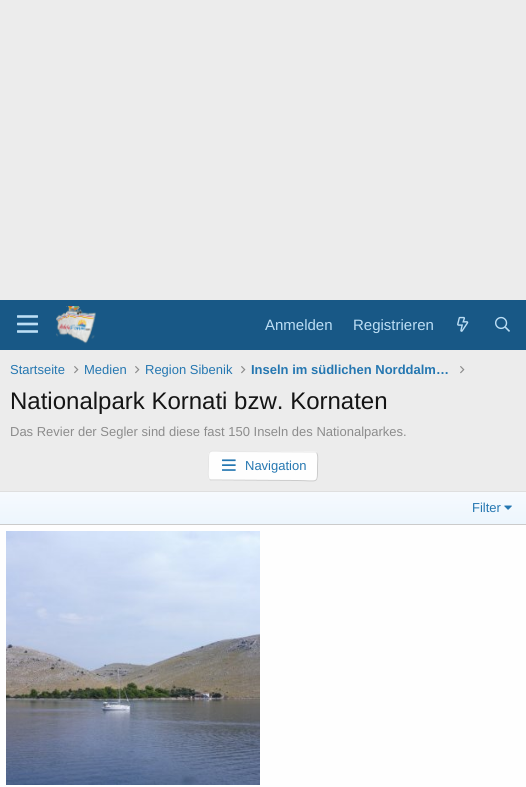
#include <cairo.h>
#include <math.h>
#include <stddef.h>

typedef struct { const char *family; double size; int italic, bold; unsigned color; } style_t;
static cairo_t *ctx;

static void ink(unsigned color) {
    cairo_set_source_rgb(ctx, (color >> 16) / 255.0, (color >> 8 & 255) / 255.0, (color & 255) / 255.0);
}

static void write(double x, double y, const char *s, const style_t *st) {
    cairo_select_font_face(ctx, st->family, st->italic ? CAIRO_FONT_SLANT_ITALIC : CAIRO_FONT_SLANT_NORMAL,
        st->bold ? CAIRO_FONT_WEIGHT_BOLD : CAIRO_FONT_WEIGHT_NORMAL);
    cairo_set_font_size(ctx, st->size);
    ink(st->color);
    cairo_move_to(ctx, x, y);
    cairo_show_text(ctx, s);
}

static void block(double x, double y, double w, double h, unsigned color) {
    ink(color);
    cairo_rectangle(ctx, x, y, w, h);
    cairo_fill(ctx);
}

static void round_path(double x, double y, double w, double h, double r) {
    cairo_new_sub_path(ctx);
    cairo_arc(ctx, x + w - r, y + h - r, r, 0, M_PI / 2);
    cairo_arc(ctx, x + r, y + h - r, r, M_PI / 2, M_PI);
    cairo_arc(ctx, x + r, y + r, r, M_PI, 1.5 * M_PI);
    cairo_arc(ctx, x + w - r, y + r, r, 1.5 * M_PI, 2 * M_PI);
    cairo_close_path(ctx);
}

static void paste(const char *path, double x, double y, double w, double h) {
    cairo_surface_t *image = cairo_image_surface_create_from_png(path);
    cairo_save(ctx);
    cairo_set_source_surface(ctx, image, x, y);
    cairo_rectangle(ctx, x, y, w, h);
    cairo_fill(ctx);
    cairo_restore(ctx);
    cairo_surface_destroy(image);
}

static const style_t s1 = {"Liberation Sans", 15, 0, 0, 0xbcdef5};
static const style_t s2 = {"Liberation Sans", 13, 0, 0, 0x2577b1};
static const style_t s3 = {"Liberation Sans", 13, 0, 1, 0x2577b1};
static const style_t s4 = {"Liberation Sans", 24, 0, 0, 0x141414};
static const style_t s5 = {"Liberation Sans", 13, 0, 0, 0x8c8c8c};

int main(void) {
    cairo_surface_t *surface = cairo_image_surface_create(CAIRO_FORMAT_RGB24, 526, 787);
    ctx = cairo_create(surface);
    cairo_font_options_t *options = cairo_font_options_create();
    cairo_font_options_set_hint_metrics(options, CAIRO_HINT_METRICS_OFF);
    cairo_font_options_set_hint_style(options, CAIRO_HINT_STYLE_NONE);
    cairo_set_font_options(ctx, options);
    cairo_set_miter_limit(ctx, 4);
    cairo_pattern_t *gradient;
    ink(0xececec);
    cairo_paint(ctx);
    block(0, 300, 526, 50, 0x185886);
    paste("pic1.png", 17, 315, 21, 18);
    paste("pic2.png", 56, 306, 40, 38);
    write(265, 330, "Anmelden", &s1);
    write(353, 330, "Registrieren", &s1);
    paste("pic3.png", 457, 316, 12, 16);
    paste("pic4.png", 495, 316, 15, 16);
    write(10, 374, "Startseite", &s2);
    paste("pic5.png", 74, 366, 5, 8);
    write(84, 374, "Medien", &s2);
    paste("pic5.png", 135, 366, 5, 8);
    write(145, 374, "Region Sibenik", &s2);
    paste("pic5.png", 241, 366, 5, 8);
    write(251, 374, "Inseln im südlichen Norddalm…", &s3);
    paste("pic5.png", 460, 366, 5, 8);
    write(10, 409, "Nationalpark Kornati bzw. Kornaten", &s4);
    write(10, 436, "Das Revier der Segler sind diese fast 150 Inseln des Nationalparkes.", &s5);
    ink(0xfefefe);
    round_path(208, 451, 110, 30, 4);
    cairo_fill(ctx);
    cairo_new_path(ctx);
    cairo_move_to(ctx, 316.5, 452.5);
    cairo_curve_to(ctx, 318.5, 454.5, 317.5, 463, 317.5, 466);
    cairo_curve_to(ctx, 317.5, 485, 319, 480.5, 297, 480.5);
    cairo_line_to(ctx, 210.5, 480);
    cairo_line_to(ctx, 209.5, 479.5);
    ink(0xcbcbcb);
    cairo_set_line_width(ctx, 1);
    cairo_stroke(ctx);
    cairo_new_path(ctx);
    cairo_move_to(ctx, 209.5, 479.5);
    cairo_curve_to(ctx, 207.5, 477.5, 208.5, 469, 208.5, 466);
    cairo_curve_to(ctx, 208.5, 447, 207, 451.5, 229, 451.5);
    cairo_line_to(ctx, 315.5, 452);
    cairo_line_to(ctx, 316.5, 452.5);
    ink(0xe5e5e5);
    cairo_stroke(ctx);
    paste("pic6.png", 222, 459, 14, 12);
    write(245, 470, "Navigation", &s2);
    block(0, 525, 526, 262, 0xfefefe);
    block(0, 491, 526, 1, 0xdfdfdf);
    gradient = cairo_pattern_create_linear(263, 524, 263, 492);
    cairo_pattern_add_color_stop_rgba(gradient, 0, 0.929, 0.965, 0.992, 1);
    cairo_pattern_add_color_stop_rgba(gradient, 1, 0.965, 0.98, 0.996, 1);
    cairo_set_source(ctx, gradient);
    cairo_pattern_destroy(gradient);
    cairo_rectangle(ctx, 0, 492, 526, 32);
    cairo_fill(ctx);
    block(0, 524, 526, 1, 0xcbcbcb);
    write(472, 512, "Filter", &s2);
    paste("pic7.png", 504, 505, 8, 5);
    paste("pic8.png", 6, 531, 254, 254);
    cairo_surface_write_to_png(surface, "screenshot.png");
    cairo_font_options_destroy(options);
    cairo_destroy(ctx);
    cairo_surface_destroy(surface);
    return 0;
}
